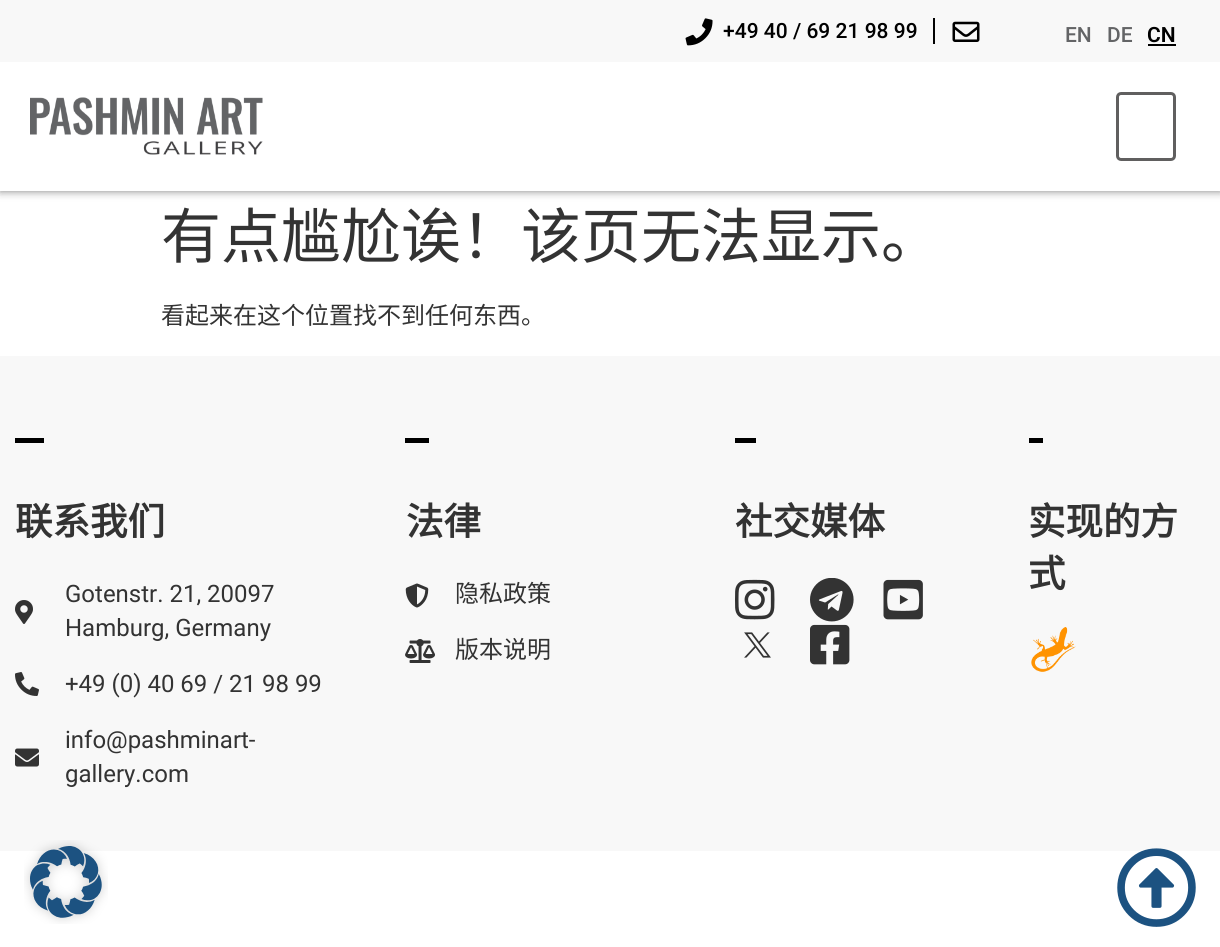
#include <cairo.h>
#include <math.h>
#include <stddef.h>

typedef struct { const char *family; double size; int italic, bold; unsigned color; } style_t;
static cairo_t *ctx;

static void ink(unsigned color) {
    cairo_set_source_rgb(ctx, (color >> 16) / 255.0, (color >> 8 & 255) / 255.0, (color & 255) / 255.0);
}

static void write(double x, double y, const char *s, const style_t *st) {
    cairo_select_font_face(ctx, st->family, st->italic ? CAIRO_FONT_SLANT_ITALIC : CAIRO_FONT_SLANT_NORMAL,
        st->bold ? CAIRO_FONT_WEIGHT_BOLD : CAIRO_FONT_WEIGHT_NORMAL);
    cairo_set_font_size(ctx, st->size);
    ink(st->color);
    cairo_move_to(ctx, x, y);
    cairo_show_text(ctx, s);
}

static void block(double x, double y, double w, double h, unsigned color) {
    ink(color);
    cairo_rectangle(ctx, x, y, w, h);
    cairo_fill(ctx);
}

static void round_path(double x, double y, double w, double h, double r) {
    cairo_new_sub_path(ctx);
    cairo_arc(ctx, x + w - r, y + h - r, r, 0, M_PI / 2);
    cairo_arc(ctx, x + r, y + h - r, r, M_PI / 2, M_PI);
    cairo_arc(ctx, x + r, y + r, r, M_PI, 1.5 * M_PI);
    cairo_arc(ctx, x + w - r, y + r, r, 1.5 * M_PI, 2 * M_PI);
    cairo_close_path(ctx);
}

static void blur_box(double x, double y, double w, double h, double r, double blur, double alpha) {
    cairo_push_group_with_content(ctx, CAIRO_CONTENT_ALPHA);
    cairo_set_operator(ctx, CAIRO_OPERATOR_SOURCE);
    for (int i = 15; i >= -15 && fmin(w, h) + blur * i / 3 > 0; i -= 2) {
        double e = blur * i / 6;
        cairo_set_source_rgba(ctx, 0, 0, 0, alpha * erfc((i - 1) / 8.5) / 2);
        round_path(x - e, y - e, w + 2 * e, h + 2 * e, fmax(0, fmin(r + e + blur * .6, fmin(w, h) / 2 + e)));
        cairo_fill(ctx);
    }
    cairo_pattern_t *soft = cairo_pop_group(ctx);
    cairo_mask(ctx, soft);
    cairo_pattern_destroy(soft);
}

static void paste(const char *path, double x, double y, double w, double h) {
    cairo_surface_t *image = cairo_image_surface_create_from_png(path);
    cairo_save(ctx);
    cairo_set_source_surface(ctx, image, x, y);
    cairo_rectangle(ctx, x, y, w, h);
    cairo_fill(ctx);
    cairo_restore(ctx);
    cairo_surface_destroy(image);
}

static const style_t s1 = {"Roboto Medium", 21, 0, 0, 0x000000};
static const style_t s2 = {"Roboto Medium", 21, 0, 0, 0x636466};
static const style_t s3 = {"Roboto SemiBold", 21, 0, 0, 0x000000};
static const style_t s4 = {"Noto Sans CJK SC", 60, 0, 0, 0x333333};
static const style_t s5 = {"Noto Sans CJK SC", 24, 0, 0, 0x333333};
static const style_t s6 = {"Noto Sans CJK SC", 37.5, 0, 1, 0x333333};
static const style_t s7 = {"Roboto", 24, 0, 0, 0x333333};

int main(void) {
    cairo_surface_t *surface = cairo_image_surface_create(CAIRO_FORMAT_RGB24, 1220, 947);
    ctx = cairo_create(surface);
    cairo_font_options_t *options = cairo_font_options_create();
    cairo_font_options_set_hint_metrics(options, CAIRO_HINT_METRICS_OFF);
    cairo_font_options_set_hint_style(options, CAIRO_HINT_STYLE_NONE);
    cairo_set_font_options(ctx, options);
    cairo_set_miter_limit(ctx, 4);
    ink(0xffffff);
    cairo_paint(ctx);
    ink(0x000000);
    blur_box(0, 0, 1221, 191, 0, 4.5, 0.5);
    block(0, 0, 1220, 62, 0xf8f8f8);
    paste("pic1.png", 685, 18, 28, 28);
    write(723, 38, "+49 40 / 69 21 98 99", &s1);
    block(933, 18, 2, 26, 0x020202);
    paste("pic2.png", 952, 21, 28, 21);
    write(1065, 42, "EN", &s2);
    write(1107, 42, "DE", &s2);
    write(1147, 42, "CN", &s3);
    block(1148, 44, 28, 2, 0x000000);
    block(0, 62, 1220, 129, 0xffffff);
    paste("pic3.png", 30, 97, 233, 58);
    round_path(1117.5, 93.5, 57, 66, 3.5);
    ink(0x605f5f);
    cairo_set_line_width(ctx, 3);
    cairo_stroke(ctx);
    block(0, 356, 1220, 495, 0xf8f8f8);
    paste("pic4.png", 1117, 848, 79, 79);
    write(161, 258, "有点尴尬诶！该页无法显示。", &s4);
    write(161, 324, "看起来在这个位置找不到任何东西。", &s5);
    block(15, 438, 29, 5, 0x000000);
    write(15, 535, "联系我们", &s6);
    paste("pic5.png", 15, 600, 18, 24);
    write(65, 602, "Gotenstr. 21, 20097", &s7);
    write(65, 636, "Hamburg, Germany", &s7);
    paste("pic6.png", 15, 672, 24, 24);
    write(65, 692, "+49 (0) 40 69 / 21 98 99", &s7);
    paste("pic7.png", 15, 748, 24, 19);
    write(65, 748, "info@pashminart-", &s7);
    write(65, 782, "gallery.com", &s7);
    block(405, 438, 24, 5, 0x000000);
    write(406, 535, "法律", &s6);
    paste("pic8.png", 405, 583, 24, 25);
    write(455, 602, "隐私政策", &s5);
    paste("pic9.png", 405, 639, 30, 24);
    write(455, 658, "版本说明", &s5);
    block(735, 438, 21, 5, 0x000000);
    write(735, 535, "社交媒体", &s6);
    paste("pic10.png", 735, 579, 40, 41);
    paste("pic11.png", 810, 578, 44, 44);
    paste("pic12.png", 883, 579, 40, 41);
    paste("pic13.png", 744, 632, 27, 26);
    paste("pic14.png", 810, 624, 40, 41);
    block(1029, 438, 14, 5, 0x000000);
    write(1028, 535, "实现的方", &s6);
    write(1028, 587, "式", &s6);
    paste("pic15.png", 1031, 627, 45, 45);
    paste("pic16.png", 24, 840, 84, 84);
    cairo_surface_write_to_png(surface, "screenshot.png");
    cairo_font_options_destroy(options);
    cairo_destroy(ctx);
    cairo_surface_destroy(surface);
    return 0;
}
